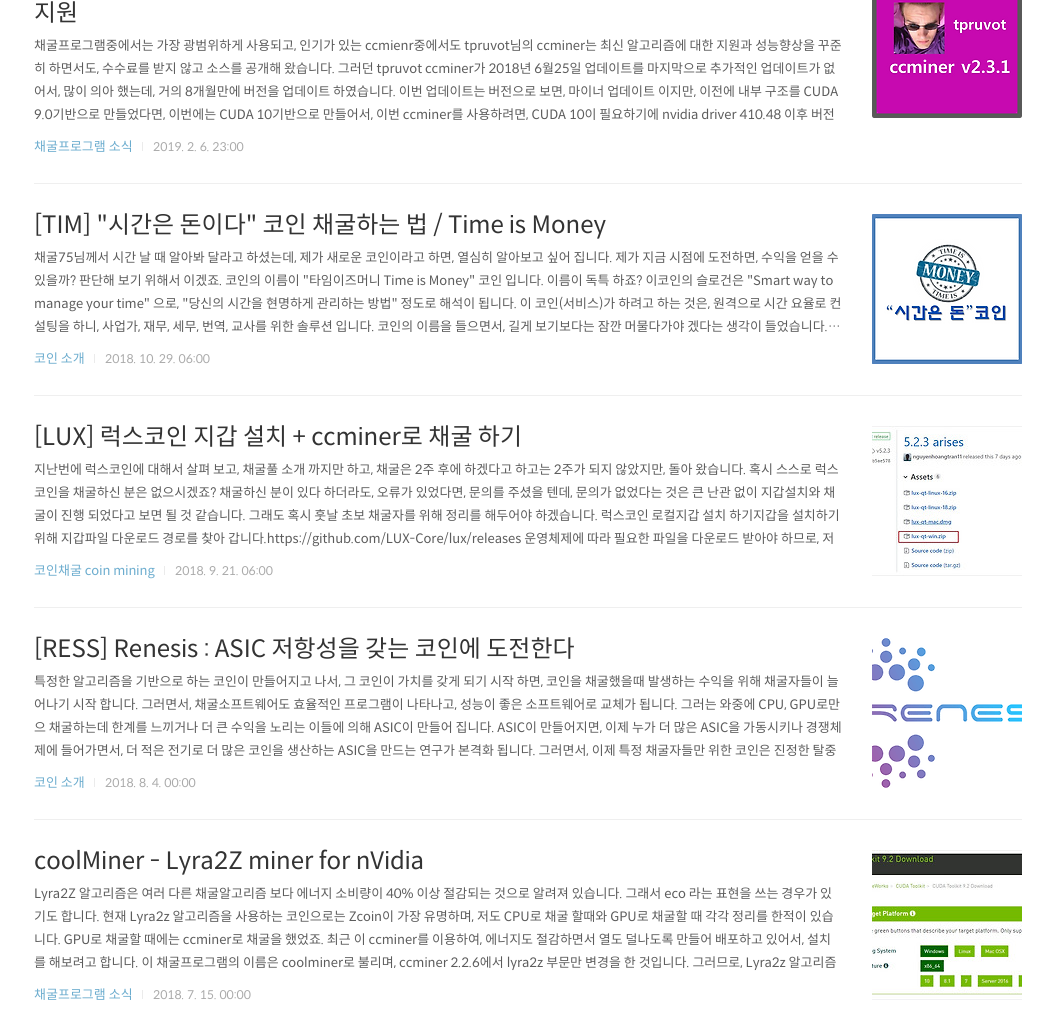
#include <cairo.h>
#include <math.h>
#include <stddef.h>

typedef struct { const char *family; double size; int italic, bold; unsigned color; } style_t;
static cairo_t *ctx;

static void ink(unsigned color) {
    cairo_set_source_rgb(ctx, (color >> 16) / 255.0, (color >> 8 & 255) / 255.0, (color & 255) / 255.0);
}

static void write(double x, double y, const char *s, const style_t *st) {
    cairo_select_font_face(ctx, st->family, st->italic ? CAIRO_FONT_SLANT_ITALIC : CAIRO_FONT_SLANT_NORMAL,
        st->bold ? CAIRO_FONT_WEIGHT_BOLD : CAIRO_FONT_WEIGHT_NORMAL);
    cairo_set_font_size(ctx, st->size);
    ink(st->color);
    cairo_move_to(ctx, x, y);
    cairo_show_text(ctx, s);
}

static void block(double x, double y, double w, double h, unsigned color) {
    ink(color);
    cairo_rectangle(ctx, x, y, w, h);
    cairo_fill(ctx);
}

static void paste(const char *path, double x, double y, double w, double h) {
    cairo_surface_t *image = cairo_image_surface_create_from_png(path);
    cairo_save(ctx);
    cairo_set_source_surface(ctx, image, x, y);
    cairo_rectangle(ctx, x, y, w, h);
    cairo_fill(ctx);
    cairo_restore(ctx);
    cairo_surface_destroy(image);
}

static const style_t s1 = {"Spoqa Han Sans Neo", 24, 0, 0, 0x333333};
static const style_t s2 = {"Spoqa Han Sans Neo", 13, 0, 0, 0x5c5c5c};
static const style_t s3 = {"Spoqa Han Sans Neo", 13, 0, 0, 0x6bacce};
static const style_t s4 = {"Spoqa Han Sans Neo", 12, 0, 0, 0xaaaaaa};

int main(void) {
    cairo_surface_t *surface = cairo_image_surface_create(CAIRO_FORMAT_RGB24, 1056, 1009);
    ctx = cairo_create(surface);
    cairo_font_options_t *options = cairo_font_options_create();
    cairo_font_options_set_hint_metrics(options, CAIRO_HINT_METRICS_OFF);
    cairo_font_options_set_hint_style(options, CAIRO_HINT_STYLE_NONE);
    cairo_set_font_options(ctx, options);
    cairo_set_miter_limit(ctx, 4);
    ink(0xffffff);
    cairo_paint(ctx);
    block(34, 183, 988, 1, 0xefefef);
    write(34, 21, "지원", &s1);
    write(34, 50, "채굴프로그램중에서는 가장 광범위하게 사용되고, 인기가 있는 ccmienr중에서도 tpruvot님의 ccminer는 최신 알고리즘에 대한 지원과 성능향상을 꾸준", &s2);
    write(34, 73, "히 하면서도, 수수료를 받지 않고 소스를 공개해 왔습니다. 그러던 tpruvot ccminer가 2018년 6월25일 업데이트를 마지막으로 추가적인 업데이트가 없", &s2);
    write(34, 96, "어서, 많이 의아 했는데, 거의 8개월만에 버전을 업데이트 하였습니다. 이번 업데이트는 버전으로 보면, 마이너 업데이트 이지만, 이전에 내부 구조를 CUDA", &s2);
    write(34, 119, "9.0기반으로 만들었다면, 이번에는 CUDA 10기반으로 만들어서, 이번 ccminer를 사용하려면, CUDA 10이 필요하기에 nvidia driver 410.48 이후 버전", &s2);
    paste("pic1.png", 872, 0, 150, 118);
    write(34, 151, "채굴프로그램 소식", &s3);
    block(142, 142, 1, 9, 0xebebeb);
    write(153, 151, "2019. 2. 6. 23:00", &s4);
    block(34, 395, 988, 1, 0xefefef);
    write(34, 233, "[TIM] \"시간은 돈이다\" 코인 채굴하는 법 / Time is Money", &s1);
    write(34, 262, "채굴75님께서 시간 날 때 알아봐 달라고 하셨는데, 제가 새로운 코인이라고 하면, 열심히 알아보고 싶어 집니다. 제가 지금 시점에 도전하면, 수익을 얻을 수", &s2);
    write(34, 285, "있을까? 판단해 보기 위해서 이겠죠. 코인의 이름이 \"타임이즈머니 Time is Money\" 코인 입니다. 이름이 독특 하죠? 이코인의 슬로건은 \"Smart way to", &s2);
    write(34, 308, "manage your time\" 으로, \"당신의 시간을 현명하게 관리하는 방법\" 정도로 해석이 됩니다. 이 코인(서비스)가 하려고 하는 것은, 원격으로 시간 요율로 컨", &s2);
    write(34, 331, "설팅을 하니, 사업가, 재무, 세무, 번역, 교사를 위한 솔루션 입니다. 코인의 이름을 들으면서, 길게 보기보다는 잠깐 머물다가야 겠다는 생각이 들었습니다.…", &s2);
    paste("pic2.png", 872, 214, 150, 150);
    write(34, 363, "코인 소개", &s3);
    block(94, 354, 1, 9, 0xebebeb);
    write(105, 363, "2018. 10. 29. 06:00", &s4);
    block(34, 607, 988, 1, 0xefefef);
    write(34, 445, "[LUX] 럭스코인 지갑 설치 + ccminer로 채굴 하기", &s1);
    write(34, 474, "지난번에 럭스코인에 대해서 살펴 보고, 채굴풀 소개 까지만 하고, 채굴은 2주 후에 하겠다고 하고는 2주가 되지 않았지만, 돌아 왔습니다. 혹시 스스로 럭스", &s2);
    write(34, 497, "코인을 채굴하신 분은 없으시겠죠? 채굴하신 분이 있다 하더라도, 오류가 있었다면, 문의를 주셨을 텐데, 문의가 없었다는 것은 큰 난관 없이 지갑설치와 채", &s2);
    write(34, 520, "굴이 진행 되었다고 보면 될 것 같습니다. 그래도 혹시 훗날 초보 채굴자를 위해 정리를 해두어야 하겠습니다. 럭스코인 로컬지갑 설치 하기지갑을 설치하기", &s2);
    write(34, 543, "위해 지갑파일 다운로드 경로를 찾아 갑니다.https://github.com/LUX-Core/lux/releases 운영체제에 따라 필요한 파일을 다운로드 받아야 하므로, 저", &s2);
    paste("pic3.png", 872, 426, 150, 150);
    write(34, 575, "코인채굴 coin mining", &s3);
    block(164, 566, 1, 9, 0xebebeb);
    write(175, 575, "2018. 9. 21. 06:00", &s4);
    block(34, 819, 988, 1, 0xefefef);
    write(34, 657, "[RESS] Renesis : ASIC 저항성을 갖는 코인에 도전한다", &s1);
    write(34, 686, "특정한 알고리즘을 기반으로 하는 코인이 만들어지고 나서, 그 코인이 가치를 갖게 되기 시작 하면, 코인을 채굴했을때 발생하는 수익을 위해 채굴자들이 늘", &s2);
    write(34, 709, "어나기 시작 합니다. 그러면서, 채굴소프트웨어도 효율적인 프로그램이 나타나고, 성능이 좋은 소프트웨어로 교체가 됩니다. 그러는 와중에 CPU, GPU로만", &s2);
    write(34, 732, "으 채굴하는데 한계를 느끼거나 더 큰 수익을 노리는 이들에 의해 ASIC이 만들어 집니다. ASIC이 만들어지면, 이제 누가 더 많은 ASIC을 가동시키나 경쟁체", &s2);
    write(34, 755, "제에 들어가면서, 더 적은 전기로 더 많은 코인을 생산하는 ASIC을 만드는 연구가 본격화 됩니다. 그러면서, 이제 특정 채굴자들만 위한 코인은 진정한 탈중", &s2);
    paste("pic4.png", 872, 638, 150, 150);
    write(34, 787, "코인 소개", &s3);
    block(94, 778, 1, 9, 0xebebeb);
    write(105, 787, "2018. 8. 4. 00:00", &s4);
    write(34, 869, "coolMiner - Lyra2Z miner for nVidia", &s1);
    write(34, 898, "Lyra2Z 알고리즘은 여러 다른 채굴알고리즘 보다 에너지 소비량이 40% 이상 절감되는 것으로 알려져 있습니다. 그래서 eco 라는 표현을 쓰는 경우가 있", &s2);
    write(34, 921, "기도 합니다. 현재 Lyra2z 알고리즘을 사용하는 코인으로는 Zcoin이 가장 유명하며, 저도 CPU로 채굴 할때와 GPU로 채굴할 때 각각 정리를 한적이 있습", &s2);
    write(34, 944, "니다. GPU로 채굴할 때에는 ccminer로 채굴을 했었죠. 최근 이 ccminer를 이용하여, 에너지도 절감하면서 열도 덜나도록 만들어 배포하고 있어서, 설치", &s2);
    write(34, 967, "를 해보려고 합니다. 이 채굴프로그램의 이름은 coolminer로 불리며, ccminer 2.2.6에서 lyra2z 부문만 변경을 한 것입니다. 그러므로, Lyra2z 알고리즘", &s2);
    paste("pic5.png", 872, 850, 150, 150);
    write(34, 999, "채굴프로그램 소식", &s3);
    block(142, 990, 1, 9, 0xebebeb);
    write(153, 999, "2018. 7. 15. 00:00", &s4);
    cairo_surface_write_to_png(surface, "screenshot.png");
    cairo_font_options_destroy(options);
    cairo_destroy(ctx);
    cairo_surface_destroy(surface);
    return 0;
}
